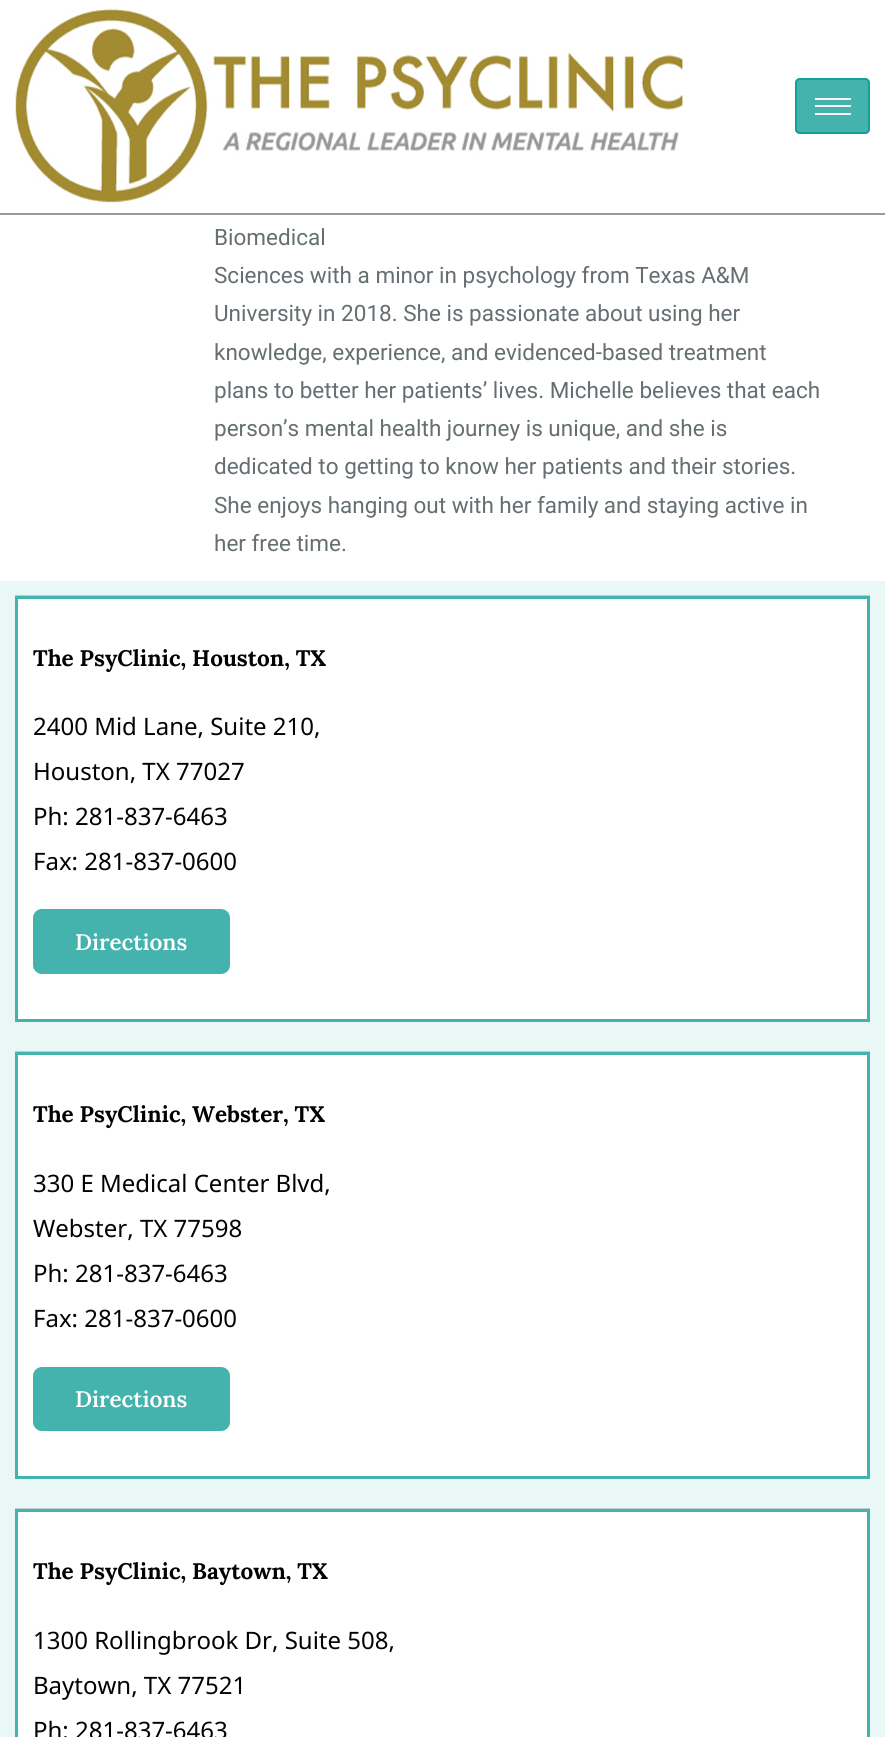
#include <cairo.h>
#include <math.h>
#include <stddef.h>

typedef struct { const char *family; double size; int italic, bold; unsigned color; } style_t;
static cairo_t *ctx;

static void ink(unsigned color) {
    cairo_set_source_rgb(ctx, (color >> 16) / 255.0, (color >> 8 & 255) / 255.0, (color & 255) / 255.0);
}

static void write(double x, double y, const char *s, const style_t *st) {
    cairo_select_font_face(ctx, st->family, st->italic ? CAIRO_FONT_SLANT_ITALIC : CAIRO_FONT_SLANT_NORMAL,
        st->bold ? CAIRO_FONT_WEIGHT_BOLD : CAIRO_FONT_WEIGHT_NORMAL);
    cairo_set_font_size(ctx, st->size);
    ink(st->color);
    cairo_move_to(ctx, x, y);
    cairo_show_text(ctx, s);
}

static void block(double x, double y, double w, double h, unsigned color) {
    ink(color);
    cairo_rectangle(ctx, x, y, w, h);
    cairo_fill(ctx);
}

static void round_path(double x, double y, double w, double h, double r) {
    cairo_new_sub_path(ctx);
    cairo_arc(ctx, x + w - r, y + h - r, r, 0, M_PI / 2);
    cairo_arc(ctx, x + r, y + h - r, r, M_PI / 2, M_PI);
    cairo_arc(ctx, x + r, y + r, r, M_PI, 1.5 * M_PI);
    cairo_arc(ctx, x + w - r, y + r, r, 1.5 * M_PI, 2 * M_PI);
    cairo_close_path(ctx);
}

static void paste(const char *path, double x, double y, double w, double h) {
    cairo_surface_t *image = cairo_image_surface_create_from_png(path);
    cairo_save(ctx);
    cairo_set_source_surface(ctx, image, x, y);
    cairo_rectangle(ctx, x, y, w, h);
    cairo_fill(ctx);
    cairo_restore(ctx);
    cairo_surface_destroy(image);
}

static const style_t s1 = {"Roboto", 22.5, 0, 0, 0x656f72};
static const style_t s2 = {"Lora", 22.5, 0, 1, 0x020202};
static const style_t s3 = {"Noto Sans Balinese", 24, 0, 0, 0x020202};
static const style_t s4 = {"Lora SemiBold", 22.5, 0, 0, 0xffffff};

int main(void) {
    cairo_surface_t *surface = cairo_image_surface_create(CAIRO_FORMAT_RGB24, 885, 1737);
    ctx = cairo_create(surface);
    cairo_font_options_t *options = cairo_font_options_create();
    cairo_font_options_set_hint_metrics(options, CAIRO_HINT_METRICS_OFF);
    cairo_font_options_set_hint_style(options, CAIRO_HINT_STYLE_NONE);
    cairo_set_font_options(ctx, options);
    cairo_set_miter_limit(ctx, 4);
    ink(0xffffff);
    cairo_paint(ctx);
    block(0, 213, 885, 2, 0x999999);
    paste("pic1.png", 15, 8, 668, 195);
    ink(0x44b3ad);
    round_path(795, 78, 75, 56, 5);
    cairo_fill(ctx);
    round_path(796, 79, 73, 54, 4);
    cairo_set_source_rgba(ctx, 0.02, 0.604, 0.573, 0.75);
    cairo_stroke(ctx);
    block(815, 98, 36, 2, 0xfdf3ff);
    block(815, 105, 36, 2, 0xfdf3ff);
    block(815, 113, 36, 2, 0xfdf3ff);
    write(214, 245, "Biomedical", &s1);
    write(214, 283, "Sciences with a minor in psychology from Texas A&M", &s1);
    write(214, 321, "University in 2018. She is passionate about using her", &s1);
    write(214, 360, "knowledge, experience, and evidenced-based treatment", &s1);
    write(214, 398, "plans to better her patients’ lives. Michelle believes that each", &s1);
    write(214, 436, "person’s mental health journey is unique, and she is", &s1);
    write(214, 474, "dedicated to getting to know her patients and their stories.", &s1);
    write(214, 513, "She enjoys hanging out with her family and staying active in", &s1);
    write(214, 551, "her free time.", &s1);
    block(0, 581, 885, 1156, 0xe9f7f6);
    block(15, 595, 855, 1, 0xc2cbd2);
    ink(0xffffff);
    cairo_rectangle(ctx, 16.5, 597.5, 852, 423);
    cairo_fill_preserve(ctx);
    ink(0x44b3ad);
    cairo_set_line_width(ctx, 3);
    cairo_stroke(ctx);
    write(33, 666, "The PsyClinic, Houston, TX", &s2);
    write(33, 735, "2400 Mid Lane, Suite 210,", &s3);
    write(33, 780, "Houston, TX 77027", &s3);
    write(33, 825, "Ph: 281-837-6463", &s3);
    write(33, 870, "Fax: 281-837-0600", &s3);
    ink(0x44b3ad);
    round_path(33, 909, 197, 65, 9);
    cairo_fill(ctx);
    write(75, 950, "Directions", &s4);
    block(15, 1051, 855, 1, 0xc2cbd2);
    ink(0xffffff);
    cairo_rectangle(ctx, 16.5, 1053.5, 852, 424);
    cairo_fill_preserve(ctx);
    ink(0x44b3ad);
    cairo_stroke(ctx);
    write(33, 1122, "The PsyClinic, Webster, TX", &s2);
    write(33, 1192, "330 E Medical Center Blvd,", &s3);
    write(33, 1237, "Webster, TX 77598", &s3);
    write(33, 1282, "Ph: 281-837-6463", &s3);
    write(33, 1327, "Fax: 281-837-0600", &s3);
    ink(0x44b3ad);
    round_path(33, 1367, 197, 64, 9);
    cairo_fill(ctx);
    write(75, 1407, "Directions", &s4);
    block(15, 1508, 855, 1, 0xc2cbd2);
    ink(0xffffff);
    cairo_rectangle(ctx, 16.5, 1510.5, 852, 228);
    cairo_fill_preserve(ctx);
    ink(0x44b3ad);
    cairo_stroke(ctx);
    write(33, 1579, "The PsyClinic, Baytown, TX", &s2);
    write(33, 1649, "1300 Rollingbrook Dr, Suite 508,", &s3);
    write(33, 1694, "Baytown, TX 77521", &s3);
    write(33, 1739, "Ph: 281-837-6463", &s3);
    cairo_surface_write_to_png(surface, "screenshot.png");
    cairo_font_options_destroy(options);
    cairo_destroy(ctx);
    cairo_surface_destroy(surface);
    return 0;
}
